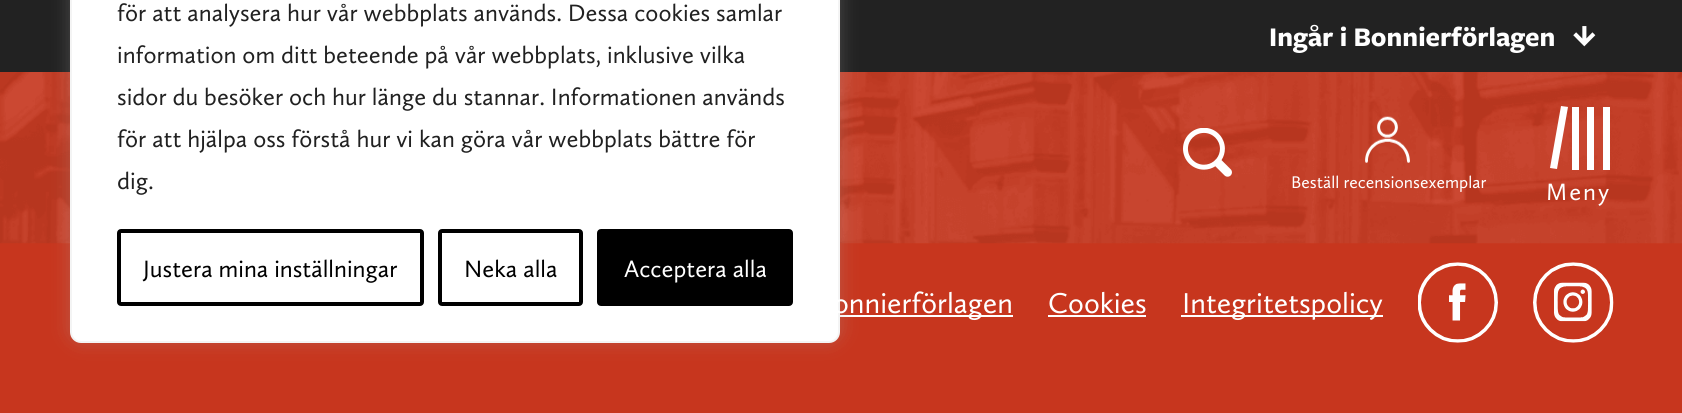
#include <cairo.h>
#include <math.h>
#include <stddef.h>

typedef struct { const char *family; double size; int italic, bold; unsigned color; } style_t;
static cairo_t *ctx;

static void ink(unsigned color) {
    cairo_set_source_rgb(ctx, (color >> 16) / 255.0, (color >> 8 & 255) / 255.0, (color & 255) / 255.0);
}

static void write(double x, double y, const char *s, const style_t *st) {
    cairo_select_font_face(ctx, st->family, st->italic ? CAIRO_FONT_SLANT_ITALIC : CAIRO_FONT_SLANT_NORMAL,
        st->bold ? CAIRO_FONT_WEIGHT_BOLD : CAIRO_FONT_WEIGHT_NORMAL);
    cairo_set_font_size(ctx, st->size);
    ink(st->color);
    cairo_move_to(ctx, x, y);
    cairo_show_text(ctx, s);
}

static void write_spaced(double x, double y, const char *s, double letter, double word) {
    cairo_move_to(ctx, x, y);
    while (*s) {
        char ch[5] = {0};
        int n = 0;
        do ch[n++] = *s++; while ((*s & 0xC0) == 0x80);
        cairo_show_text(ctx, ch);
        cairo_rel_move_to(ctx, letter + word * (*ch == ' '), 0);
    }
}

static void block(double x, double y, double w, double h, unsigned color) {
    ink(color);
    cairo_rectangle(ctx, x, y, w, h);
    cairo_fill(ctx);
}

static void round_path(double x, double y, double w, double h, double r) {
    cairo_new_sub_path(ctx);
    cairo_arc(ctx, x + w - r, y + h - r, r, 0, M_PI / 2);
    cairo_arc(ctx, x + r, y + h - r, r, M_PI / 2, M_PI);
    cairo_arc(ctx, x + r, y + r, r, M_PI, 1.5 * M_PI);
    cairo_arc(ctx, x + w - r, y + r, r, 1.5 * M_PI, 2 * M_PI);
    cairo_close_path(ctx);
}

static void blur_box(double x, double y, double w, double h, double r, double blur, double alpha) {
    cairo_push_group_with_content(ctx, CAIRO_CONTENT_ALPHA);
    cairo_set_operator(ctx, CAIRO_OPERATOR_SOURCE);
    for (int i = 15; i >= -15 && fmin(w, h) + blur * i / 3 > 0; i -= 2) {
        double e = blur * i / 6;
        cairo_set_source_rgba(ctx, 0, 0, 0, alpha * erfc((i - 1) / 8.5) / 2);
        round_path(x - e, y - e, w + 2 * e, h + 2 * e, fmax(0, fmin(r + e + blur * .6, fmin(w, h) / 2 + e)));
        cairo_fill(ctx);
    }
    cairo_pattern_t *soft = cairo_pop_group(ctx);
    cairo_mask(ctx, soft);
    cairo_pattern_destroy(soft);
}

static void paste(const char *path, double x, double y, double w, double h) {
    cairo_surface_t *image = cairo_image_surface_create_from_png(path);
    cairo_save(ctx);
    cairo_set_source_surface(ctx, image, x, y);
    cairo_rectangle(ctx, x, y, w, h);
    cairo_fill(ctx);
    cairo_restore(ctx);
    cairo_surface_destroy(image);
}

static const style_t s1 = {"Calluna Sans", 24.5, 0, 0, 0x212121};
static const style_t s2 = {"Calluna Sans", 24.5, 0, 0, 0x000000};
static const style_t s3 = {"Calluna Sans", 24.5, 0, 0, 0xffffff};
static const style_t s4 = {"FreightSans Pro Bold", 28, 0, 1, 0xffffff};
static const style_t s5 = {"Calluna Sans", 17.5, 0, 0, 0xffffff};
static const style_t s6 = {"Calluna Sans", 29.75, 0, 0, 0xffffff};

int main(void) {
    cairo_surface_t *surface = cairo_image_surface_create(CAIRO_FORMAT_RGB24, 1682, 413);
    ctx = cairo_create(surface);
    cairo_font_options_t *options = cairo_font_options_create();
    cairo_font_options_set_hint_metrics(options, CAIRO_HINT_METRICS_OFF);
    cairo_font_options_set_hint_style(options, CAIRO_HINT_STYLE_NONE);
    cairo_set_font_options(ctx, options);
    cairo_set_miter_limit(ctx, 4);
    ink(0xc7361e);
    cairo_paint(ctx);
    block(0, 0, 1682, 72, 0x222222);
    paste("pic2.png", 0, 72, 1682, 172);
    block(840, 315, 173, 2, 0xffffff);
    ink(0xacabab);
    blur_box(70, -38, 770, 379, 11, 9, 0.3);
    ink(0xffffff);
    round_path(71, -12, 768, 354, 10);
    cairo_fill_preserve(ctx);
    ink(0xf4f4f4);
    cairo_stroke(ctx);
    write(117, 21, "för att analysera hur vår webbplats används. Dessa cookies samlar", &s1);
    write(117, 63, "information om ditt beteende på vår webbplats, inklusive vilka", &s1);
    write(117, 105, "sidor du besöker och hur länge du stannar. Informationen används", &s1);
    write(117, 147, "för att hjälpa oss förstå hur vi kan göra vår webbplats bättre för", &s1);
    write(117, 189, "dig.", &s1);
    round_path(119, 231, 303, 73, 2);
    ink(0x000000);
    cairo_set_line_width(ctx, 4);
    cairo_stroke(ctx);
    write(143, 277, "Justera mina inställningar", &s2);
    round_path(440, 231, 141, 73, 2);
    cairo_stroke(ctx);
    write(464, 277, "Neka alla", &s2);
    round_path(599, 231, 192, 73, 2);
    cairo_fill_preserve(ctx);
    cairo_stroke(ctx);
    write(624, 277, "Acceptera alla", &s3);
    write(1269, 46, "Ingår i Bonnierförlagen", &s4);
    paste("pic1.png", 1573, 26, 23, 21);
    paste("pic3.png", 1183, 128, 49, 49);
    paste("pic4.png", 1365, 116, 45, 47);
    write(1291, 188, "Beställ recensionsexemplar", &s5);
    cairo_new_path(ctx);
    cairo_move_to(ctx, 1561, 106);
    cairo_line_to(ctx, 1568, 107);
    cairo_line_to(ctx, 1557, 169);
    cairo_line_to(ctx, 1550, 168);
    cairo_close_path(ctx);
    cairo_fill(ctx);
    block(1572, 107, 7, 63, 0xffffff);
    block(1587, 107, 7, 63, 0xffffff);
    block(1603, 107, 7, 63, 0xffffff);
    cairo_set_font_size(ctx, 24.5);
    write_spaced(1546, 200, "Meny", 2, 0);
    write(833, 313, "onnierförlagen", &s6);
    write(1048, 313, "Cookies", &s6);
    block(1048, 315, 98, 2, 0xffffff);
    block(1181, 315, 202, 2, 0xffffff);
    write(1182, 313, "Integritetspolicy", &s6);
    paste("pic5.png", 1418, 262, 80, 81);
    paste("pic6.png", 1533, 262, 81, 81);
    cairo_surface_write_to_png(surface, "screenshot.png");
    cairo_font_options_destroy(options);
    cairo_destroy(ctx);
    cairo_surface_destroy(surface);
    return 0;
}
